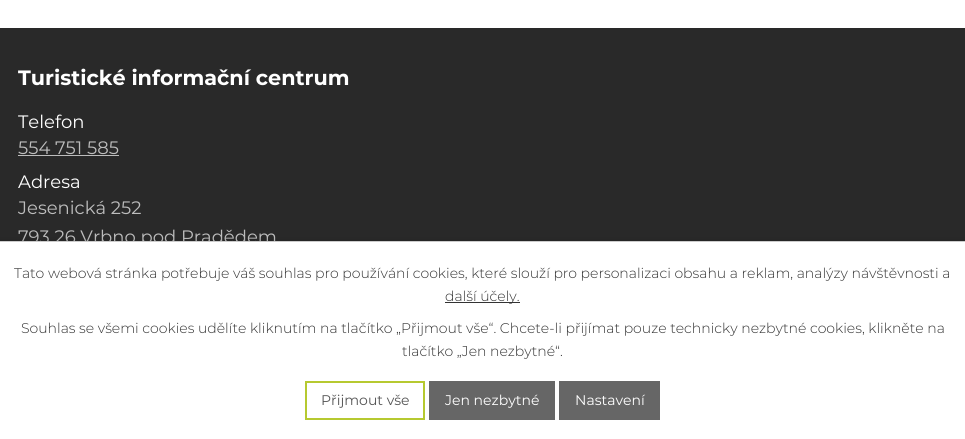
#include <cairo.h>
#include <math.h>
#include <stddef.h>

typedef struct { const char *family; double size; int italic, bold; unsigned color; } style_t;
static cairo_t *ctx;

static void ink(unsigned color) {
    cairo_set_source_rgb(ctx, (color >> 16) / 255.0, (color >> 8 & 255) / 255.0, (color & 255) / 255.0);
}

static void write(double x, double y, const char *s, const style_t *st) {
    cairo_select_font_face(ctx, st->family, st->italic ? CAIRO_FONT_SLANT_ITALIC : CAIRO_FONT_SLANT_NORMAL,
        st->bold ? CAIRO_FONT_WEIGHT_BOLD : CAIRO_FONT_WEIGHT_NORMAL);
    cairo_set_font_size(ctx, st->size);
    ink(st->color);
    cairo_move_to(ctx, x, y);
    cairo_show_text(ctx, s);
}

static void block(double x, double y, double w, double h, unsigned color) {
    ink(color);
    cairo_rectangle(ctx, x, y, w, h);
    cairo_fill(ctx);
}

static void round_path(double x, double y, double w, double h, double r) {
    cairo_new_sub_path(ctx);
    cairo_arc(ctx, x + w - r, y + h - r, r, 0, M_PI / 2);
    cairo_arc(ctx, x + r, y + h - r, r, M_PI / 2, M_PI);
    cairo_arc(ctx, x + r, y + r, r, M_PI, 1.5 * M_PI);
    cairo_arc(ctx, x + w - r, y + r, r, 1.5 * M_PI, 2 * M_PI);
    cairo_close_path(ctx);
}

static void blur_box(double x, double y, double w, double h, double r, double blur, double alpha) {
    cairo_push_group_with_content(ctx, CAIRO_CONTENT_ALPHA);
    cairo_set_operator(ctx, CAIRO_OPERATOR_SOURCE);
    for (int i = 15; i >= -15 && fmin(w, h) + blur * i / 3 > 0; i -= 2) {
        double e = blur * i / 6;
        cairo_set_source_rgba(ctx, 0, 0, 0, alpha * erfc((i - 1) / 8.5) / 2);
        round_path(x - e, y - e, w + 2 * e, h + 2 * e, fmax(0, fmin(r + e + blur * .6, fmin(w, h) / 2 + e)));
        cairo_fill(ctx);
    }
    cairo_pattern_t *soft = cairo_pop_group(ctx);
    cairo_mask(ctx, soft);
    cairo_pattern_destroy(soft);
}

static const style_t s1 = {"Montserrat", 20.75, 0, 1, 0xffffff};
static const style_t s2 = {"Montserrat", 18, 0, 0, 0xffffff};
static const style_t s3 = {"Montserrat", 18, 0, 0, 0xbdbdbd};
static const style_t s4 = {"Montserrat Light", 14, 0, 0, 0x333333};
static const style_t s5 = {"Montserrat", 14, 0, 0, 0x555555};
static const style_t s6 = {"Montserrat", 14, 0, 0, 0xffffff};

int main(void) {
    cairo_surface_t *surface = cairo_image_surface_create(CAIRO_FORMAT_RGB24, 965, 439);
    ctx = cairo_create(surface);
    cairo_font_options_t *options = cairo_font_options_create();
    cairo_font_options_set_hint_metrics(options, CAIRO_HINT_METRICS_OFF);
    cairo_font_options_set_hint_style(options, CAIRO_HINT_STYLE_NONE);
    cairo_set_font_options(ctx, options);
    cairo_set_miter_limit(ctx, 4);
    ink(0xffffff);
    cairo_paint(ctx);
    block(0, 28, 965, 213, 0x292929);
    write(18, 85, "Turistické informační centrum", &s1);
    write(18, 128, "Telefon", &s2);
    write(18, 154, "554 751 585", &s3);
    block(18, 155, 101, 1, 0xbdbdbd);
    write(18, 188, "Adresa", &s2);
    write(18, 214, "Jesenická 252", &s3);
    write(18, 243, "793 26 Vrbno pod Pradědem", &s3);
    ink(0x000000);
    blur_box(0, 241, 965, 198, 0, 2.5, 0.2);
    block(0, 242, 965, 197, 0xffffff);
    block(0, 241, 965, 1, 0xcccccc);
    write(14, 278, "Tato webová stránka potřebuje váš souhlas pro používání cookies, které slouží pro personalizaci obsahu a reklam, analýzy návštěvnosti a", &s4);
    block(445, 302, 75, 1, 0x333333);
    write(445, 301, "další účely.", &s4);
    write(21, 333, "Souhlas se všemi cookies udělíte kliknutím na tlačítko „Přijmout vše“. Chcete-li přijímat pouze technicky nezbytné cookies, klikněte na", &s4);
    write(402, 356, "tlačítko „Jen nezbytné“.", &s4);
    cairo_rectangle(ctx, 306, 382, 118, 37);
    ink(0xb6c930);
    cairo_stroke(ctx);
    write(321, 405, "Přijmout vše", &s5);
    block(429, 381, 126, 39, 0x666666);
    write(445, 405, "Jen nezbytné", &s6);
    block(559, 381, 101, 39, 0x666666);
    write(575, 405, "Nastavení", &s6);
    cairo_surface_write_to_png(surface, "screenshot.png");
    cairo_font_options_destroy(options);
    cairo_destroy(ctx);
    cairo_surface_destroy(surface);
    return 0;
}
